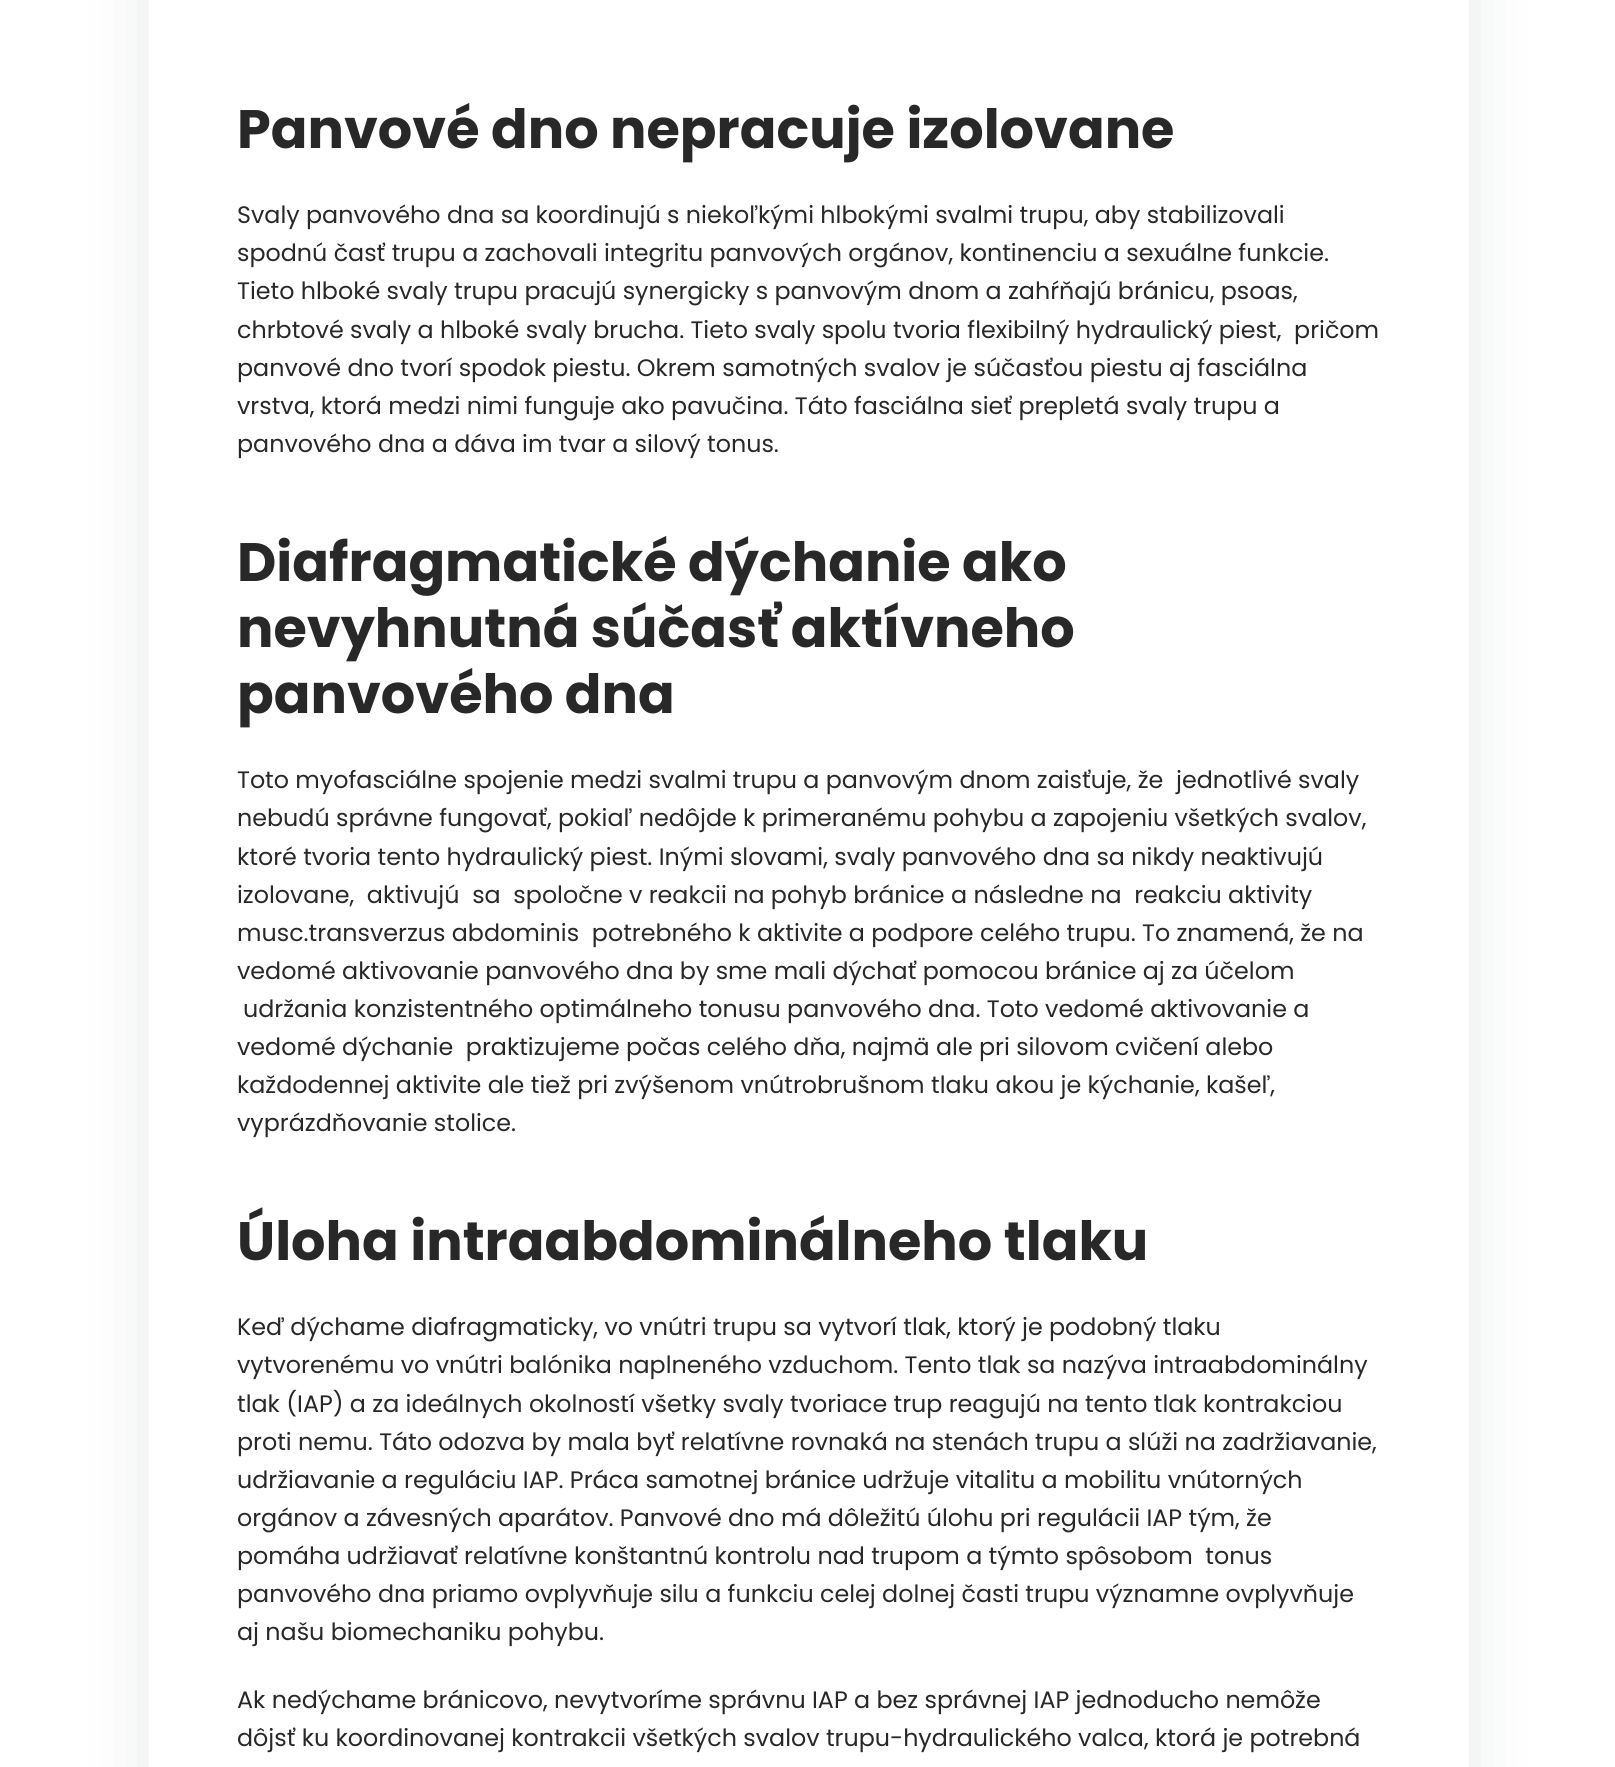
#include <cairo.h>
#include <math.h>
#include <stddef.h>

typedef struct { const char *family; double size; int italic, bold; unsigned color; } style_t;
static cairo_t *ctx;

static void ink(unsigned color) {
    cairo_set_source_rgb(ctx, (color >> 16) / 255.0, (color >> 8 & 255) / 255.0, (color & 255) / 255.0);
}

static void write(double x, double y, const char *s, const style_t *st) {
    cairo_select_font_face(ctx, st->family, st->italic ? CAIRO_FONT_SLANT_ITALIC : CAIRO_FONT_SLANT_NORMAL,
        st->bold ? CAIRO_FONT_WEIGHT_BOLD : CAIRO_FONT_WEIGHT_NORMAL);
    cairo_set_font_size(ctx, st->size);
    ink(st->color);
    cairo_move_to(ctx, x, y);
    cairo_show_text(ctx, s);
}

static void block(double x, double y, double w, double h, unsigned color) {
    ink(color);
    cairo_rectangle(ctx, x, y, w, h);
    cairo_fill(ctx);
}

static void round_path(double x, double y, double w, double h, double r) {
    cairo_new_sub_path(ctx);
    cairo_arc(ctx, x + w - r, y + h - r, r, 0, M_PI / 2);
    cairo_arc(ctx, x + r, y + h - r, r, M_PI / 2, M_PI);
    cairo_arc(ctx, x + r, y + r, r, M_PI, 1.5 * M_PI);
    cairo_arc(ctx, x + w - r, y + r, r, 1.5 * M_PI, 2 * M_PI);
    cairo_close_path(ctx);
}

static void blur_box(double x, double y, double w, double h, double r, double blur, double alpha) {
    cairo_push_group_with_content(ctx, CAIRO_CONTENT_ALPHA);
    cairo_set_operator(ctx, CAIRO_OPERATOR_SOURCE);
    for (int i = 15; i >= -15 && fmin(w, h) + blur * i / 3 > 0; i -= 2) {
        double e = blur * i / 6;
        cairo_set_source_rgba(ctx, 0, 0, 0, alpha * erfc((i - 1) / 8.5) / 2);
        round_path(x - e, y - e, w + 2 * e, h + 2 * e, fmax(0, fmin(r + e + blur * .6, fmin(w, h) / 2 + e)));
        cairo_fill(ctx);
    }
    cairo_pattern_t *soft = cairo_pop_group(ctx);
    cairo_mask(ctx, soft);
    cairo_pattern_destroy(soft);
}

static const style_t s1 = {"Poppins", 54.1, 0, 1, 0x282828};
static const style_t s2 = {"Poppins", 23.8, 0, 0, 0x282828};

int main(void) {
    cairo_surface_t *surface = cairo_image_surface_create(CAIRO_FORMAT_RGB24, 1615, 1767);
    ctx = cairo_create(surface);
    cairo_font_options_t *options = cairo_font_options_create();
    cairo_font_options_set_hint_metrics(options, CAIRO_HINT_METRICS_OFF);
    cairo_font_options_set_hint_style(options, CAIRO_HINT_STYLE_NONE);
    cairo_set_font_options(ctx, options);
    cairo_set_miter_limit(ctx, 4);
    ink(0xffffff);
    cairo_paint(ctx);
    ink(0x101828);
    blur_box(167, -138, 1284, 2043, 30, 36, 0.18);
    block(149, 0, 1320, 1767, 0xffffff);
    write(237, 148, "Panvové dno nepracuje izolovane", &s1);
    write(237, 223, "Svaly panvového dna sa koordinujú s niekoľkými hlbokými svalmi trupu, aby stabilizovali", &s2);
    write(237, 261, "spodnú časť trupu a zachovali integritu panvových orgánov, kontinenciu a sexuálne funkcie.", &s2);
    write(237, 299, "Tieto hlboké svaly trupu pracujú synergicky s panvovým dnom a zahŕňajú bránicu, psoas,", &s2);
    write(237, 338, "chrbtové svaly a hlboké svaly brucha. Tieto svaly spolu tvoria flexibilný hydraulický piest,  pričom", &s2);
    write(237, 376, "panvové dno tvorí spodok piestu. Okrem samotných svalov je súčasťou piestu aj fasciálna", &s2);
    write(237, 414, "vrstva, ktorá medzi nimi funguje ako pavučina. Táto fasciálna sieť prepletá svaly trupu a", &s2);
    write(237, 452, "panvového dna a dáva im tvar a silový tonus.", &s2);
    write(237, 581, "Diafragmatické dýchanie ako", &s1);
    write(237, 647, "nevyhnutná súčasť aktívneho", &s1);
    write(237, 713, "panvového dna", &s1);
    write(237, 788, "Toto myofasciálne spojenie medzi svalmi trupu a panvovým dnom zaisťuje, že  jednotlivé svaly", &s2);
    write(237, 826, "nebudú správne fungovať, pokiaľ nedôjde k primeranému pohybu a zapojeniu všetkých svalov,", &s2);
    write(237, 865, "ktoré tvoria tento hydraulický piest. Inými slovami, svaly panvového dna sa nikdy neaktivujú", &s2);
    write(237, 903, "izolovane,  aktivujú  sa  spoločne v reakcii na pohyb bránice a následne na  reakciu aktivity", &s2);
    write(237, 941, "musc.transverzus abdominis  potrebného k aktivite a podpore celého trupu. To znamená, že na", &s2);
    write(237, 979, "vedomé aktivovanie panvového dna by sme mali dýchať pomocou bránice aj za účelom", &s2);
    write(243, 1017, "udržania konzistentného optimálneho tonusu panvového dna. Toto vedomé aktivovanie a", &s2);
    write(237, 1055, "vedomé dýchanie  praktizujeme počas celého dňa, najmä ale pri silovom cvičení alebo", &s2);
    write(237, 1093, "každodennej aktivite ale tiež pri zvýšenom vnútrobrušnom tlaku akou je kýchanie, kašeľ,", &s2);
    write(237, 1131, "vyprázdňovanie stolice.", &s2);
    write(237, 1260, "Úloha intraabdominálneho tlaku", &s1);
    write(237, 1335, "Keď dýchame diafragmaticky, vo vnútri trupu sa vytvorí tlak, ktorý je podobný tlaku", &s2);
    write(237, 1373, "vytvorenému vo vnútri balónika naplneného vzduchom. Tento tlak sa nazýva intraabdominálny", &s2);
    write(237, 1412, "tlak (IAP) a za ideálnych okolností všetky svaly tvoriace trup reagujú na tento tlak kontrakciou", &s2);
    write(237, 1450, "proti nemu. Táto odozva by mala byť relatívne rovnaká na stenách trupu a slúži na zadržiavanie,", &s2);
    write(237, 1488, "udržiavanie a reguláciu IAP. Práca samotnej bránice udržuje vitalitu a mobilitu vnútorných", &s2);
    write(237, 1526, "orgánov a závesných aparátov. Panvové dno má dôležitú úlohu pri regulácii IAP tým, že", &s2);
    write(237, 1564, "pomáha udržiavať relatívne konštantnú kontrolu nad trupom a týmto spôsobom  tonus", &s2);
    write(237, 1602, "panvového dna priamo ovplyvňuje silu a funkciu celej dolnej časti trupu významne ovplyvňuje", &s2);
    write(237, 1640, "aj našu biomechaniku pohybu.", &s2);
    write(237, 1708, "Ak nedýchame bránicovo, nevytvoríme správnu IAP a bez správnej IAP jednoducho nemôže", &s2);
    write(237, 1746, "dôjsť ku koordinovanej kontrakcii všetkých svalov trupu-hydraulického valca, ktorá je potrebná", &s2);
    cairo_surface_write_to_png(surface, "screenshot.png");
    cairo_font_options_destroy(options);
    cairo_destroy(ctx);
    cairo_surface_destroy(surface);
    return 0;
}
